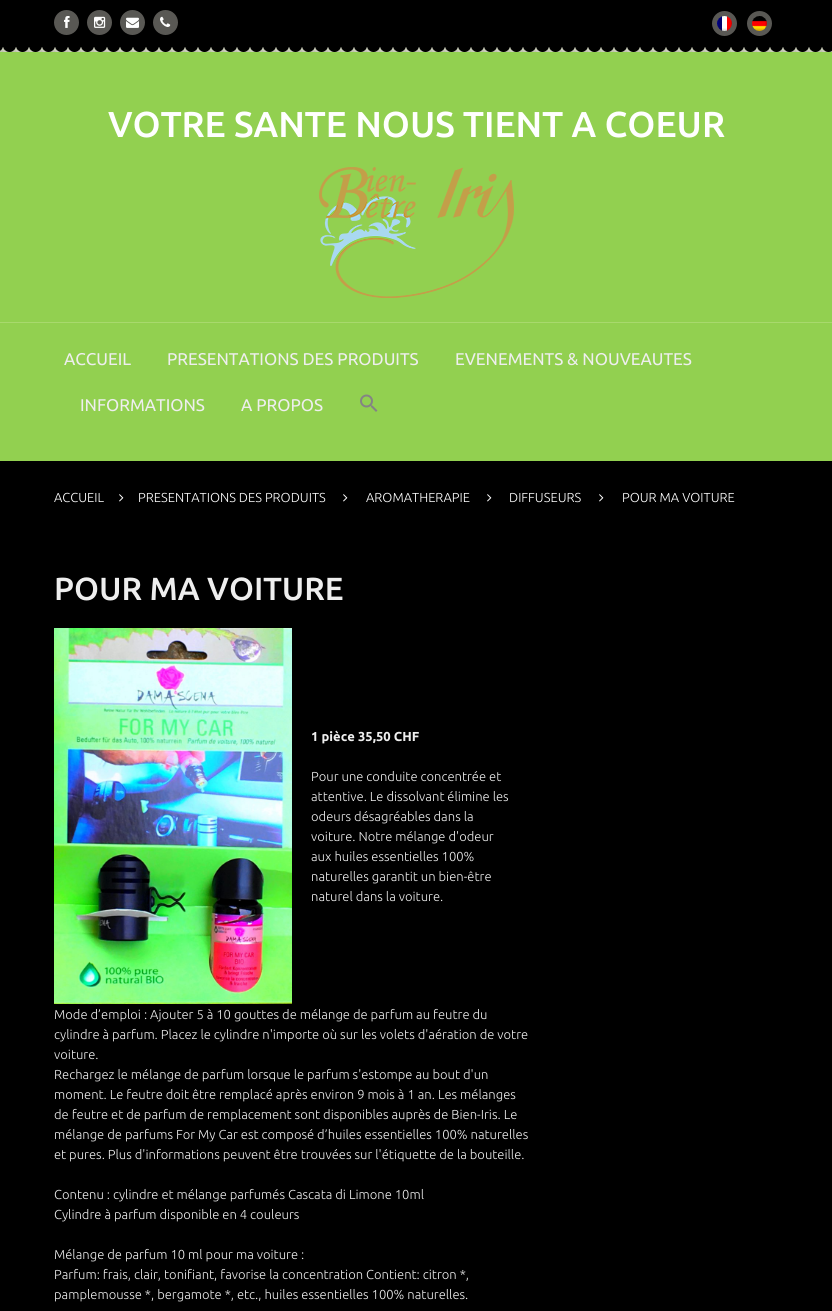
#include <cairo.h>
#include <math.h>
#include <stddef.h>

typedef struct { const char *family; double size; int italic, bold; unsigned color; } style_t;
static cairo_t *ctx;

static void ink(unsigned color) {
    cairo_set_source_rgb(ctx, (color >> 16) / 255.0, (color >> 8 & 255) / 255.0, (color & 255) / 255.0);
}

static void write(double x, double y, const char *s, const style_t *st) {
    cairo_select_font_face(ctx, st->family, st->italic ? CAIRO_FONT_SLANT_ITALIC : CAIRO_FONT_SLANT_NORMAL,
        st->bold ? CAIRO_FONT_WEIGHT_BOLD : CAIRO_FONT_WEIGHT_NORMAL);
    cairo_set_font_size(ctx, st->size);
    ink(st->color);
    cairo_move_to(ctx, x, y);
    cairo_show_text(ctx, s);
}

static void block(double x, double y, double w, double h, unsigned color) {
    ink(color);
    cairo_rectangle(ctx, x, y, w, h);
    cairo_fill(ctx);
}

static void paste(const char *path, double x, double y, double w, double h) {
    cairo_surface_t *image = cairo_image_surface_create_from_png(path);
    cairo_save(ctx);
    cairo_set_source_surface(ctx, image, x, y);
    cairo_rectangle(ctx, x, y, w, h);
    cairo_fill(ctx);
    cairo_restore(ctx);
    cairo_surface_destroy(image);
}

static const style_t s1 = {"Ubuntu Medium", 36, 0, 0, 0xffffff};
static const style_t s2 = {"Ubuntu", 17, 0, 0, 0xeeeeee};
static const style_t s3 = {"Ubuntu Light", 13, 0, 0, 0xffffff};
static const style_t s4 = {"Ubuntu Medium", 32, 0, 0, 0xeeeeee};
static const style_t s5 = {"Ubuntu", 13, 0, 1, 0xeeeeee};
static const style_t s6 = {"Ubuntu Light", 13, 0, 0, 0xeeeeee};

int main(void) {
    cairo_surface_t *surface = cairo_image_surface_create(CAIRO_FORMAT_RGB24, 832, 1311);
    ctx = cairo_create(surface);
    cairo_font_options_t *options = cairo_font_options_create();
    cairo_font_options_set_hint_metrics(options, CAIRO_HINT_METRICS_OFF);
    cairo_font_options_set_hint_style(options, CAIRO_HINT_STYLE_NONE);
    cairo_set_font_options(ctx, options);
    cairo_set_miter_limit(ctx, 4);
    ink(0x000000);
    cairo_paint(ctx);
    ink(0x595854);
    cairo_arc(ctx, 66.5, 22.5, 12.5, 0, 2 * M_PI);
    cairo_fill(ctx);
    paste("pic1.png", 64, 16, 6, 12);
    cairo_arc(ctx, 99.5, 22.5, 12.5, 0, 2 * M_PI);
    cairo_fill(ctx);
    paste("pic2.png", 94, 16, 12, 12);
    cairo_arc(ctx, 132.5, 22.5, 12.5, 0, 2 * M_PI);
    cairo_fill(ctx);
    paste("pic3.png", 126, 17, 13, 11);
    cairo_arc(ctx, 165.5, 22.5, 12.5, 0, 2 * M_PI);
    cairo_fill(ctx);
    paste("pic4.png", 160, 16, 11, 11);
    cairo_arc(ctx, 724.5, 23.5, 12.5, 0, 2 * M_PI);
    cairo_fill(ctx);
    paste("pic5.png", 717, 16, 15, 15);
    cairo_arc(ctx, 759.5, 23.5, 12.5, 0, 2 * M_PI);
    cairo_fill(ctx);
    paste("pic6.png", 752, 16, 15, 15);
    block(0, 52, 832, 409, 0x92d050);
    paste("pic7.png", 0, 47, 832, 5);
    write(108, 137, "VOTRE SANTE NOUS TIENT A COEUR", &s1);
    paste("pic8.png", 319, 167, 195, 131);
    block(0, 322, 832, 1, 0xa8d96d);
    write(64, 365, "ACCUEIL", &s2);
    write(167, 365, "PRESENTATIONS DES PRODUITS", &s2);
    write(455, 365, "EVENEMENTS & NOUVEAUTES", &s2);
    write(80, 411, "INFORMATIONS", &s2);
    write(241, 411, "A PROPOS", &s2);
    paste("pic9.png", 360, 394, 18, 18);
    write(54, 502, "ACCUEIL", &s3);
    paste("pic10.png", 119, 494, 5, 8);
    write(138, 502, "PRESENTATIONS DES PRODUITS", &s3);
    paste("pic10.png", 343, 494, 5, 8);
    write(366, 502, "AROMATHERAPIE", &s3);
    paste("pic10.png", 487, 494, 5, 8);
    write(509, 502, "DIFFUSEURS", &s3);
    paste("pic10.png", 599, 494, 5, 8);
    write(622, 502, "POUR MA VOITURE", &s3);
    write(54, 600, "POUR MA VOITURE", &s4);
    paste("pic11.png", 54, 628, 238, 376);
    write(311, 741, "1 pièce 35,50 CHF", &s5);
    write(311, 781, "Pour une conduite concentrée et", &s6);
    write(311, 801, "attentive. Le dissolvant élimine les", &s6);
    write(311, 821, "odeurs désagréables dans la", &s6);
    write(311, 841, "voiture. Notre mélange d'odeur", &s6);
    write(311, 861, "aux huiles essentielles 100%", &s6);
    write(311, 881, "naturelles garantit un bien-être", &s6);
    write(311, 901, "naturel dans la voiture.", &s6);
    write(54, 1019, "Mode d’emploi : Ajouter 5 à 10 gouttes de mélange de parfum au feutre du", &s6);
    write(54, 1039, "cylindre à parfum. Placez le cylindre n'importe où sur les volets d'aération de votre", &s6);
    write(54, 1059, "voiture.", &s6);
    write(54, 1079, "Rechargez le mélange de parfum lorsque le parfum s'estompe au bout d'un", &s6);
    write(54, 1099, "moment. Le feutre doit être remplacé après environ 9 mois à 1 an. Les mélanges", &s6);
    write(54, 1119, "de feutre et de parfum de remplacement sont disponibles auprès de Bien-Iris. Le", &s6);
    write(54, 1139, "mélange de parfums For My Car est composé d’huiles essentielles 100% naturelles", &s6);
    write(54, 1159, "et pures. Plus d'informations peuvent être trouvées sur l'étiquette de la bouteille.", &s6);
    write(54, 1199, "Contenu : cylindre et mélange parfumés Cascata di Limone 10ml", &s6);
    write(54, 1219, "Cylindre à parfum disponible en 4 couleurs", &s6);
    write(54, 1259, "Mélange de parfum 10 ml pour ma voiture :", &s6);
    write(54, 1279, "Parfum: frais, clair, tonifiant, favorise la concentration Contient: citron *,", &s6);
    write(54, 1299, "pamplemousse *, bergamote *, etc., huiles essentielles 100% naturelles.", &s6);
    cairo_surface_write_to_png(surface, "screenshot.png");
    cairo_font_options_destroy(options);
    cairo_destroy(ctx);
    cairo_surface_destroy(surface);
    return 0;
}
